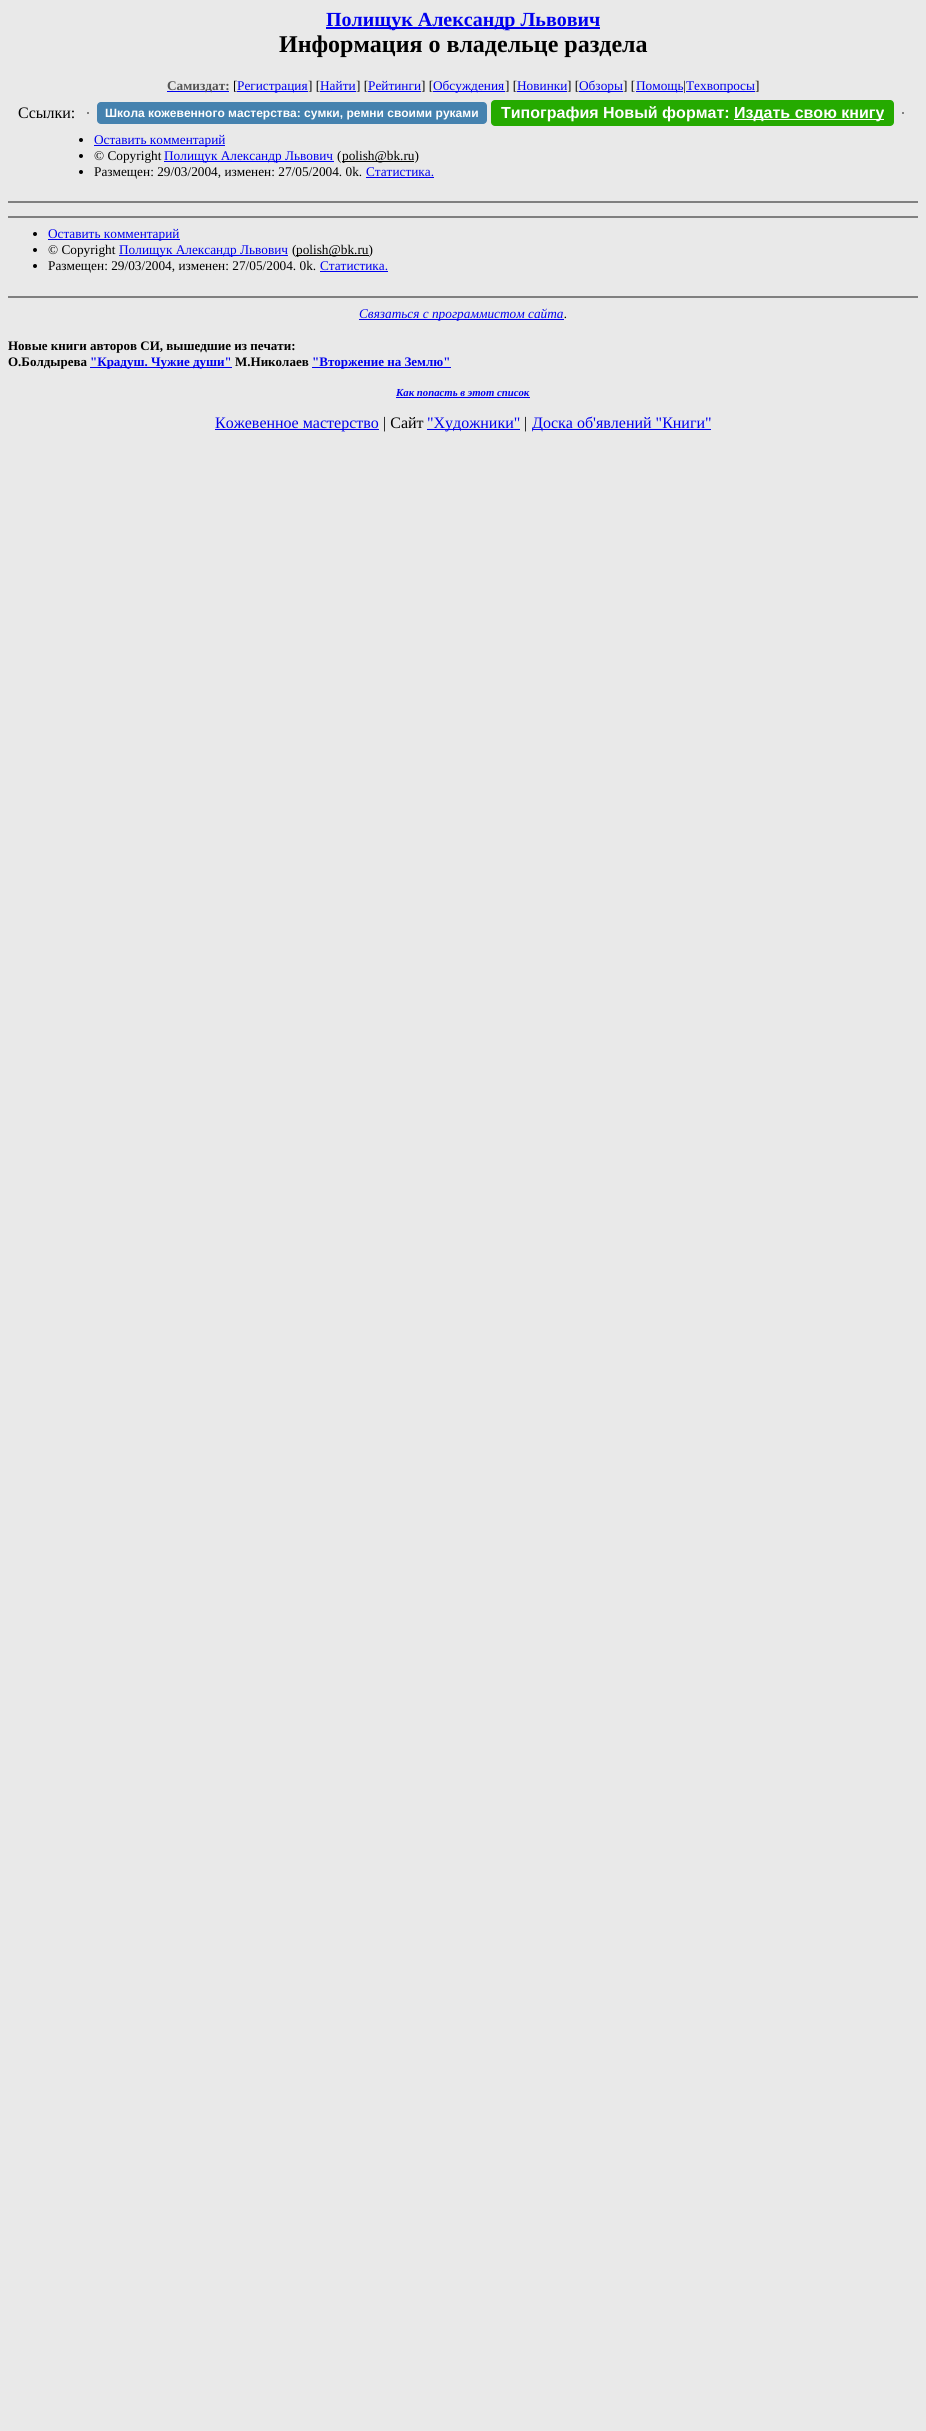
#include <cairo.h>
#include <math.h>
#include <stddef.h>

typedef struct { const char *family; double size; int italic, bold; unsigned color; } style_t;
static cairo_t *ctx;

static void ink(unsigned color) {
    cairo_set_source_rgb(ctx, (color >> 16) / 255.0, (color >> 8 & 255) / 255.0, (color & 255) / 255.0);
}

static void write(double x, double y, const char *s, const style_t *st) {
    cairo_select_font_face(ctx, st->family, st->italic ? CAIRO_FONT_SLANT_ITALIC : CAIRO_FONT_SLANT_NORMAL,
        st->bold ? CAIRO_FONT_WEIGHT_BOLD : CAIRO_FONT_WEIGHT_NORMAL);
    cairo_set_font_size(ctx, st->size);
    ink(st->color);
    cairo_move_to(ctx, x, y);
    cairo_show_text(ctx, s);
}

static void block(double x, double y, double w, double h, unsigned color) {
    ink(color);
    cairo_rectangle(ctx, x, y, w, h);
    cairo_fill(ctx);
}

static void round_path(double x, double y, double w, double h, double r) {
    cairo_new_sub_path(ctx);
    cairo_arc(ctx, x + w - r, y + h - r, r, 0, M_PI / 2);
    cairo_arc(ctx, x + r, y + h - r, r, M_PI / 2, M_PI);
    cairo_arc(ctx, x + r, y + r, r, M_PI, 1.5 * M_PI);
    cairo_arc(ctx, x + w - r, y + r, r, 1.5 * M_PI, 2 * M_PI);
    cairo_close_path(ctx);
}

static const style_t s1 = {"Liberation Serif", 20, 0, 1, 0x0000ee};
static const style_t s2 = {"Liberation Serif", 24, 0, 1, 0x000000};
static const style_t s3 = {"Liberation Serif", 13.3, 0, 1, 0x555555};
static const style_t s4 = {"Liberation Serif", 13.3, 0, 0, 0x000000};
static const style_t s5 = {"Liberation Serif", 13.3, 0, 0, 0x0000ee};
static const style_t s6 = {"Liberation Serif", 16, 0, 0, 0x000000};
static const style_t s7 = {"Liberation Sans", 12, 0, 1, 0xffffff};
static const style_t s8 = {"Liberation Sans", 16, 0, 1, 0xffffff};
static const style_t s9 = {"Liberation Serif", 13.3, 1, 0, 0x0000ee};
static const style_t s10 = {"Liberation Serif", 13.3, 1, 0, 0x000000};
static const style_t s11 = {"Liberation Serif", 13, 0, 1, 0x000000};
static const style_t s12 = {"Liberation Serif", 13, 0, 1, 0x0000ee};
static const style_t s13 = {"Liberation Serif", 10.75, 1, 1, 0x0000ee};
static const style_t s14 = {"Liberation Serif", 16, 0, 0, 0x0000ee};

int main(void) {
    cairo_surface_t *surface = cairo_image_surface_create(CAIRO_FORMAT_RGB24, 926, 2431);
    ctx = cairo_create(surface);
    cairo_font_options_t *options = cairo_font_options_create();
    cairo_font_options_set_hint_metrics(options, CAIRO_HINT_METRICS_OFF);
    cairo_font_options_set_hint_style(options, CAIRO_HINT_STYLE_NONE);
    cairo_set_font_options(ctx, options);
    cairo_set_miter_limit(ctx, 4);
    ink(0xe9e9e9);
    cairo_paint(ctx);
    block(326, 27, 274, 2, 0x0000ee);
    write(326, 26, "Полищук Александр Львович", &s1);
    write(279, 52, "Информация о владельце раздела", &s2);
    block(167, 91, 62, 1, 0x0000ee);
    write(167, 90, "Самиздат:", &s3);
    write(233, 90, "[", &s4);
    block(237, 91, 71, 1, 0x0000ee);
    write(237, 90, "Регистрация", &s5);
    write(308, 90, "] [", &s4);
    block(320, 91, 36, 1, 0x0000ee);
    write(320, 90, "Найти", &s5);
    write(356, 90, "] [", &s4);
    block(368, 91, 53, 1, 0x0000ee);
    write(368, 90, "Рейтинги", &s5);
    write(421, 90, "] [", &s4);
    block(433, 91, 72, 1, 0x0000ee);
    write(433, 90, "Обсуждения", &s5);
    write(505, 90, "] [", &s4);
    block(517, 91, 50, 1, 0x0000ee);
    write(517, 90, "Новинки", &s5);
    write(567, 90, "] [", &s4);
    block(579, 91, 44, 1, 0x0000ee);
    write(579, 90, "Обзоры", &s5);
    write(623, 90, "] [", &s4);
    block(636, 91, 47, 1, 0x0000ee);
    write(636, 90, "Помощь", &s5);
    write(683, 90, "|", &s4);
    block(686, 91, 69, 1, 0x0000ee);
    write(686, 90, "Техвопросы", &s5);
    write(755, 90, "]", &s4);
    write(18, 118, "Ссылки:", &s6);
    block(87, 112, 2, 2, 0x808080);
    ink(0x4582af);
    round_path(97, 102, 390, 22, 4);
    cairo_fill(ctx);
    write(105, 117, "Школа кожевенного мастерства: сумки, ремни своими руками", &s7);
    ink(0x25aa00);
    round_path(491, 100, 403, 26, 4);
    cairo_fill(ctx);
    write(501, 118, "Типография Новый формат:", &s8);
    block(734, 119, 150, 1, 0xffffff);
    write(734, 118, "Издать свою книгу", &s8);
    block(902, 112, 2, 2, 0x808080);
    ink(0x000000);
    cairo_new_path(ctx);
    cairo_arc(ctx, 81, 140, 2, 0, 2 * M_PI);
    cairo_fill(ctx);
    block(94, 145, 131, 1, 0x0000ee);
    write(94, 144, "Оставить комментарий", &s5);
    ink(0x000000);
    cairo_new_path(ctx);
    cairo_arc(ctx, 81, 156, 2, 0, 2 * M_PI);
    cairo_fill(ctx);
    write(94, 160, "© Copyright", &s4);
    block(164, 161, 170, 1, 0x0000ee);
    write(164, 160, "Полищук Александр Львович", &s5);
    write(337, 160, "(", &s4);
    block(342, 161, 72, 1, 0x000000);
    write(342, 160, "polish@bk.ru)", &s4);
    cairo_new_path(ctx);
    cairo_arc(ctx, 81, 172, 2, 0, 2 * M_PI);
    cairo_fill(ctx);
    write(94, 176, "Размещен: 29/03/2004, изменен: 27/05/2004. 0k.", &s4);
    write(366, 176, "Статистика.", &s5);
    block(366, 177, 68, 1, 0x0000ee);
    block(8, 201, 910, 2, 0x808080);
    block(8, 216, 910, 2, 0x808080);
    ink(0x000000);
    cairo_new_path(ctx);
    cairo_arc(ctx, 35, 234, 2, 0, 2 * M_PI);
    cairo_fill(ctx);
    block(48, 239, 132, 1, 0x0000ee);
    write(48, 238, "Оставить комментарий", &s5);
    ink(0x000000);
    cairo_new_path(ctx);
    cairo_arc(ctx, 35, 250, 2, 0, 2 * M_PI);
    cairo_fill(ctx);
    write(48, 254, "© Copyright", &s4);
    block(119, 255, 169, 1, 0x0000ee);
    write(119, 254, "Полищук Александр Львович", &s5);
    write(292, 254, "(", &s4);
    block(296, 255, 73, 1, 0x000000);
    write(296, 254, "polish@bk.ru)", &s4);
    cairo_new_path(ctx);
    cairo_arc(ctx, 35, 266, 2, 0, 2 * M_PI);
    cairo_fill(ctx);
    write(48, 270, "Размещен: 29/03/2004, изменен: 27/05/2004. 0k.", &s4);
    write(320, 270, "Статистика.", &s5);
    block(320, 271, 68, 1, 0x0000ee);
    block(8, 296, 910, 2, 0x808080);
    block(359, 319, 205, 1, 0x0000ee);
    write(359, 318, "Связаться с программистом сайта", &s9);
    write(564, 318, ".", &s10);
    write(8, 350, "Новые книги авторов СИ, вышедшие из печати:", &s11);
    write(8, 366, "О.Болдырева", &s11);
    block(90, 367, 142, 1, 0x0000ee);
    write(90, 366, "\"Крадуш. Чужие души\"", &s12);
    write(235, 366, "М.Николаев", &s11);
    block(312, 367, 139, 1, 0x0000ee);
    write(312, 366, "\"Вторжение на Землю\"", &s12);
    write(396, 396, "Как попасть в этoт список", &s13);
    block(396, 397, 134, 1, 0x0000ee);
    block(215, 429, 164, 1, 0x0000ee);
    write(215, 428, "Кожевенное мастерство", &s14);
    write(383, 428, "| Сайт", &s6);
    block(427, 429, 93, 1, 0x0000ee);
    write(427, 428, "\"Художники\"", &s14);
    write(524, 428, "|", &s6);
    block(532, 429, 179, 1, 0x0000ee);
    write(532, 428, "Доска об'явлений \"Книги\"", &s14);
    cairo_surface_write_to_png(surface, "screenshot.png");
    cairo_font_options_destroy(options);
    cairo_destroy(ctx);
    cairo_surface_destroy(surface);
    return 0;
}
